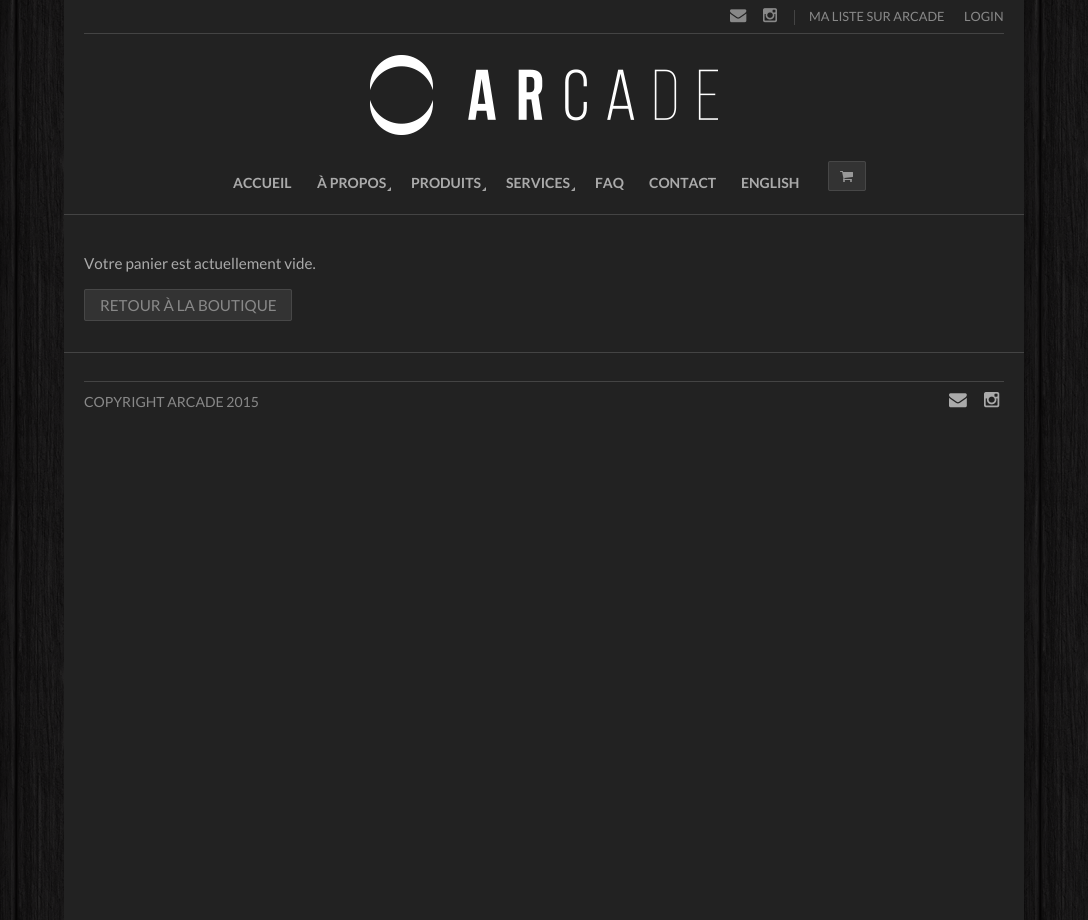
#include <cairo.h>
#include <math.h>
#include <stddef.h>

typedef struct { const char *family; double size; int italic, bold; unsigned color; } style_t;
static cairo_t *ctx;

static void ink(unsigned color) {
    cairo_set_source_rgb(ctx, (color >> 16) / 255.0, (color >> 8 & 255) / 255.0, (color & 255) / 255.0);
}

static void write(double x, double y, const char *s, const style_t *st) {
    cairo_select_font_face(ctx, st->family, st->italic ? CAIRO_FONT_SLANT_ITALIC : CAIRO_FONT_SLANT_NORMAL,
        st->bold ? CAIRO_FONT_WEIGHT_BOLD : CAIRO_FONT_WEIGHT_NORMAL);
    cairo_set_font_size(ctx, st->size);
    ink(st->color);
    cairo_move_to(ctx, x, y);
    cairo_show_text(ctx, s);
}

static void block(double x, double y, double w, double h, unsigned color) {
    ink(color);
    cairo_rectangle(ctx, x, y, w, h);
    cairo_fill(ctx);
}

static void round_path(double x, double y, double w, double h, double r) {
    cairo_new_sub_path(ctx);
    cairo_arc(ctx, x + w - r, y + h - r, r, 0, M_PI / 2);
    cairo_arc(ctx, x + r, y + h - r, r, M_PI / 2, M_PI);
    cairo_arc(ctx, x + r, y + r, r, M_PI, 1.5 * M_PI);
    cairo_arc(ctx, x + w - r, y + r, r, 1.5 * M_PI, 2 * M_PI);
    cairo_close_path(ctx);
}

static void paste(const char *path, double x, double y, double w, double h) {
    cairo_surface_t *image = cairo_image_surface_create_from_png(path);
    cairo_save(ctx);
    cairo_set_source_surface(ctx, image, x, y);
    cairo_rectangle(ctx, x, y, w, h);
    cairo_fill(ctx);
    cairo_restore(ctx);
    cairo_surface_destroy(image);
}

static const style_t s1 = {"Lato", 12.75, 0, 0, 0x888888};
static const style_t s2 = {"Lato", 14, 0, 1, 0xaaaaaa};
static const style_t s3 = {"Lato", 15.2, 0, 0, 0xaaaaaa};
static const style_t s4 = {"Lato", 15.2, 0, 0, 0x888888};
static const style_t s5 = {"Lato", 14, 0, 0, 0x888888};

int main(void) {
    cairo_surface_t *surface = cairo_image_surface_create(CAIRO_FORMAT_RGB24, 1088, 920);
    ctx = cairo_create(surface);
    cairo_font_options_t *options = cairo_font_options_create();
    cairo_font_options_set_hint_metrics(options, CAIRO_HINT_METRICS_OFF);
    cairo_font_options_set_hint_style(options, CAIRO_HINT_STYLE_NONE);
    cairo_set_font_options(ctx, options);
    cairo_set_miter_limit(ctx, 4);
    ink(0xffffff);
    cairo_paint(ctx);
    paste("pic1.png", 0, 0, 1088, 920);
    block(64, 0, 960, 920, 0x222222);
    block(64, 214, 960, 1, 0x444444);
    block(84, 33, 920, 1, 0x444444);
    paste("pic2.png", 730, 9, 17, 14);
    paste("pic3.png", 763, 8, 14, 15);
    block(794, 10, 1, 15, 0x444444);
    write(809, 21, "MA LISTE SUR ARCADE", &s1);
    write(964, 21, "LOGIN", &s1);
    paste("pic4.png", 370, 55, 348, 80);
    write(233, 188, "ACCUEIL", &s2);
    write(317, 188, "À PROPOS", &s2);
    cairo_new_path(ctx);
    cairo_move_to(ctx, 391, 187);
    cairo_line_to(ctx, 391, 191);
    cairo_line_to(ctx, 389, 189);
    cairo_close_path(ctx);
    cairo_fill(ctx);
    cairo_new_path(ctx);
    cairo_move_to(ctx, 391, 191);
    cairo_line_to(ctx, 387, 191);
    cairo_line_to(ctx, 389, 189);
    cairo_close_path(ctx);
    cairo_fill(ctx);
    write(411, 188, "PRODUITS", &s2);
    cairo_new_path(ctx);
    cairo_move_to(ctx, 486, 187);
    cairo_line_to(ctx, 486, 191);
    cairo_line_to(ctx, 484, 189);
    cairo_close_path(ctx);
    cairo_fill(ctx);
    cairo_new_path(ctx);
    cairo_move_to(ctx, 486, 191);
    cairo_line_to(ctx, 482, 191);
    cairo_line_to(ctx, 484, 189);
    cairo_close_path(ctx);
    cairo_fill(ctx);
    write(506, 188, "SERVICES", &s2);
    cairo_new_path(ctx);
    cairo_move_to(ctx, 575, 187);
    cairo_line_to(ctx, 575, 191);
    cairo_line_to(ctx, 573, 189);
    cairo_close_path(ctx);
    cairo_fill(ctx);
    cairo_new_path(ctx);
    cairo_move_to(ctx, 575, 191);
    cairo_line_to(ctx, 571, 191);
    cairo_line_to(ctx, 573, 189);
    cairo_close_path(ctx);
    cairo_fill(ctx);
    write(595, 188, "FAQ", &s2);
    write(649, 188, "CONTACT", &s2);
    write(741, 188, "ENGLISH", &s2);
    ink(0x333333);
    round_path(828.5, 161.5, 37, 29, 1.5);
    cairo_fill_preserve(ctx);
    ink(0x474747);
    cairo_set_line_width(ctx, 1);
    cairo_stroke(ctx);
    paste("pic5.png", 840, 171, 13, 11);
    write(84, 269, "Votre panier est actuellement vide.", &s3);
    ink(0x333333);
    round_path(84.5, 289.5, 207, 31, 1.5);
    cairo_fill_preserve(ctx);
    ink(0x474747);
    cairo_stroke(ctx);
    write(100, 311, "RETOUR À LA BOUTIQUE", &s4);
    block(64, 352, 960, 1, 0x444444);
    block(84, 381, 920, 1, 0x444444);
    write(84, 407, "COPYRIGHT ARCADE 2015", &s5);
    paste("pic6.png", 949, 393, 18, 15);
    paste("pic7.png", 984, 392, 16, 16);
    cairo_surface_write_to_png(surface, "screenshot.png");
    cairo_font_options_destroy(options);
    cairo_destroy(ctx);
    cairo_surface_destroy(surface);
    return 0;
}
